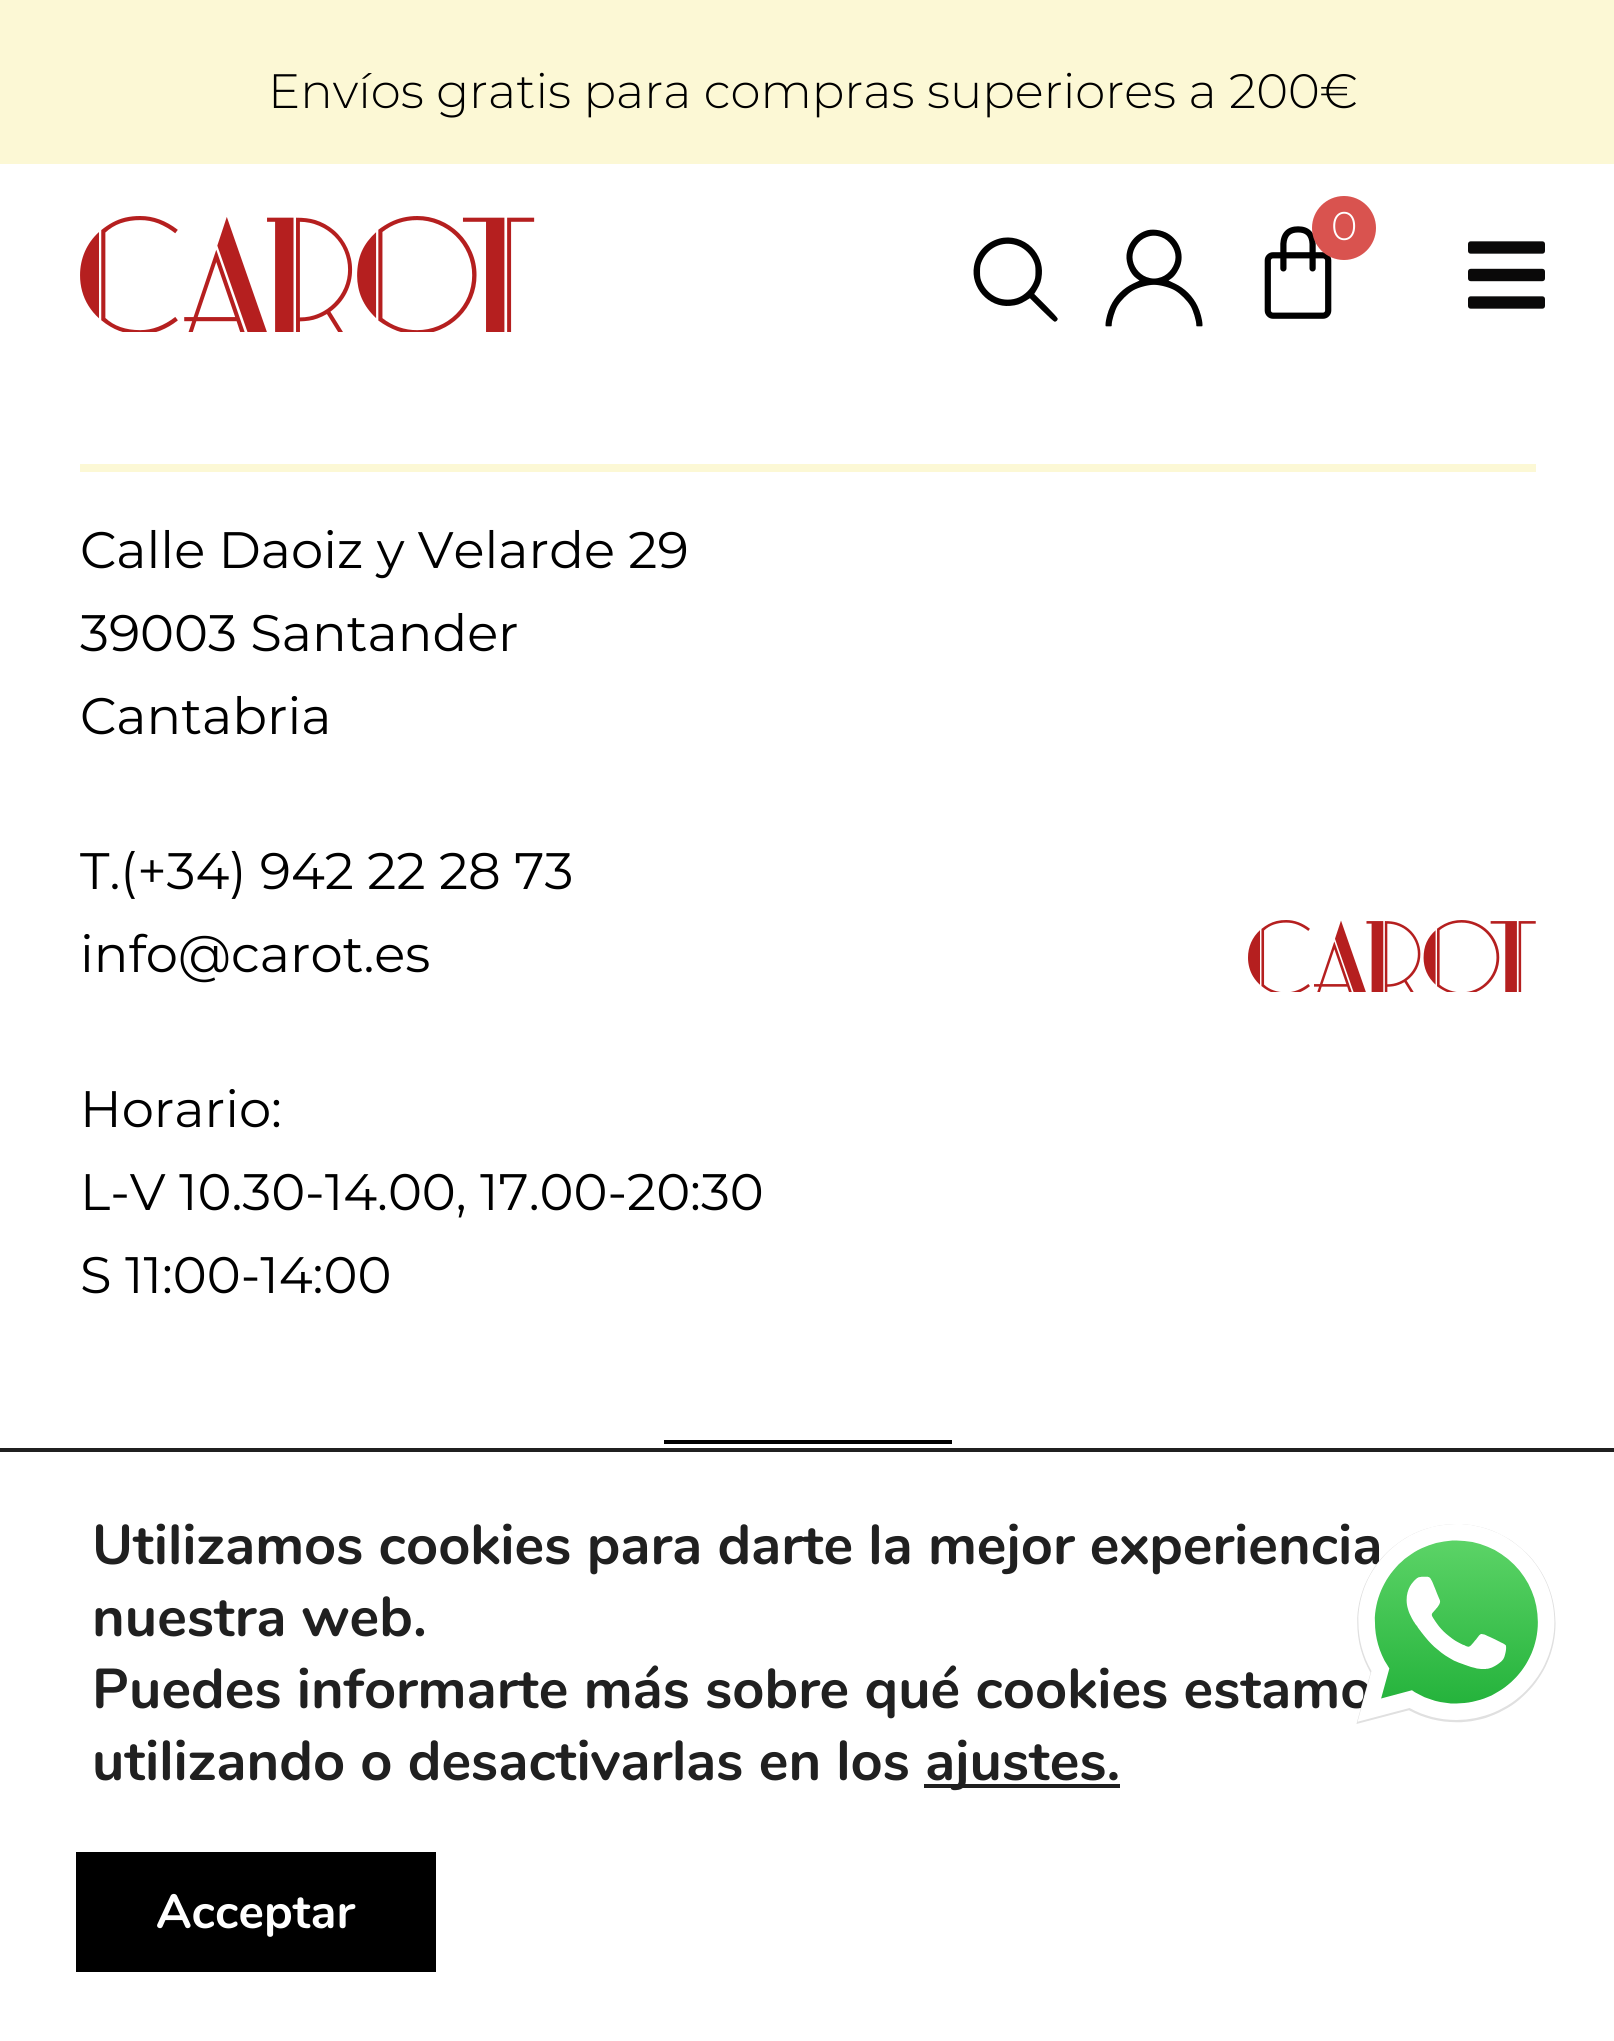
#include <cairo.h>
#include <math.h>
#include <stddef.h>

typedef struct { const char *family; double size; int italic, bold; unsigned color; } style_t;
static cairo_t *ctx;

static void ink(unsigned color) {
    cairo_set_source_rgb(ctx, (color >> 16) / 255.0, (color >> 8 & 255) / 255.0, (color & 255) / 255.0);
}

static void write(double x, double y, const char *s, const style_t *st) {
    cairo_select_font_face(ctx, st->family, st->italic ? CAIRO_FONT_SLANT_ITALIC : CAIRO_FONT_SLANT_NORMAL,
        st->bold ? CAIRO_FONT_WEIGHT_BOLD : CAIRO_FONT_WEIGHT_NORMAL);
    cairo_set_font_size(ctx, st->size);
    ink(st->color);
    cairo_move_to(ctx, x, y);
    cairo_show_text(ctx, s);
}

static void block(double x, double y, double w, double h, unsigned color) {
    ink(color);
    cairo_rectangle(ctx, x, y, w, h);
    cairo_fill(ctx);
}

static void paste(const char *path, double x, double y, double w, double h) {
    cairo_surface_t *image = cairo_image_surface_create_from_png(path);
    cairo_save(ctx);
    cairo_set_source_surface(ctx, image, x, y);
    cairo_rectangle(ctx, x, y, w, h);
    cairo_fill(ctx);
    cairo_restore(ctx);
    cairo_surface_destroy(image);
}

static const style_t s1 = {"Montserrat Light", 48.25, 0, 0, 0x000000};
static const style_t s2 = {"Montserrat Light", 40, 0, 0, 0xffffff};
static const style_t s3 = {"Montserrat", 51.25, 0, 0, 0x000000};
static const style_t s4 = {"Nunito", 56, 0, 1, 0x202020};
static const style_t s5 = {"Nunito", 48, 0, 1, 0xffffff};

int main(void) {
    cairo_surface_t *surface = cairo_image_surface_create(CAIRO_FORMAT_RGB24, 1614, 2041);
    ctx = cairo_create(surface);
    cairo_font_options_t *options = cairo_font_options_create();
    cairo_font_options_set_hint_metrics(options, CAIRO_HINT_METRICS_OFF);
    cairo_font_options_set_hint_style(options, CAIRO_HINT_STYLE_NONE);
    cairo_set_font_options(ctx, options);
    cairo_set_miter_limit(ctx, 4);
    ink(0xffffff);
    cairo_paint(ctx);
    block(0, 0, 1614, 164, 0xfcf8d5);
    write(268, 108, "Envíos gratis para compras superiores a 200€", &s1);
    paste("pic1.png", 80, 216, 455, 116);
    paste("pic2.png", 1264, 226, 68, 93);
    ink(0xd9534f);
    cairo_arc(ctx, 1344, 228, 32, 0, 2 * M_PI);
    cairo_fill(ctx);
    write(1331, 240, "0", &s2);
    paste("pic3.png", 973, 237, 85, 85);
    paste("pic4.png", 1105, 229, 98, 99);
    paste("pic5.png", 1468, 241, 77, 68);
    block(80, 464, 1456, 8, 0xfcf8d5);
    write(80, 568, "Calle Daoiz y Velarde 29", &s3);
    write(80, 651, "39003 Santander", &s3);
    write(80, 734, "Cantabria", &s3);
    write(80, 889, "T.(+34) 942 22 28 73", &s3);
    write(80, 972, "info@carot.es", &s3);
    write(80, 1127, "Horario:", &s3);
    write(80, 1210, "L-V 10.30-14.00, 17.00-20:30", &s3);
    write(80, 1293, "S 11:00-14:00", &s3);
    paste("pic6.png", 1248, 920, 288, 72);
    block(664, 1440, 288, 4, 0x000000);
    block(0, 1448, 1614, 4, 0x202020);
    write(92, 1564, "Utilizamos cookies para darte la mejor experiencia", &s4);
    write(92, 1636, "nuestra web.", &s4);
    write(92, 1708, "Puedes informarte más sobre qué cookies estamo", &s4);
    write(92, 1780, "utilizando o desactivarlas en los", &s4);
    block(924, 1784, 196, 4, 0x202020);
    write(925, 1780, "ajustes.", &s4);
    block(76, 1852, 360, 120, 0x000000);
    write(156, 1928, "Acceptar", &s5);
    paste("pic7.png", 1356, 1524, 200, 200);
    cairo_surface_write_to_png(surface, "screenshot.png");
    cairo_font_options_destroy(options);
    cairo_destroy(ctx);
    cairo_surface_destroy(surface);
    return 0;
}
